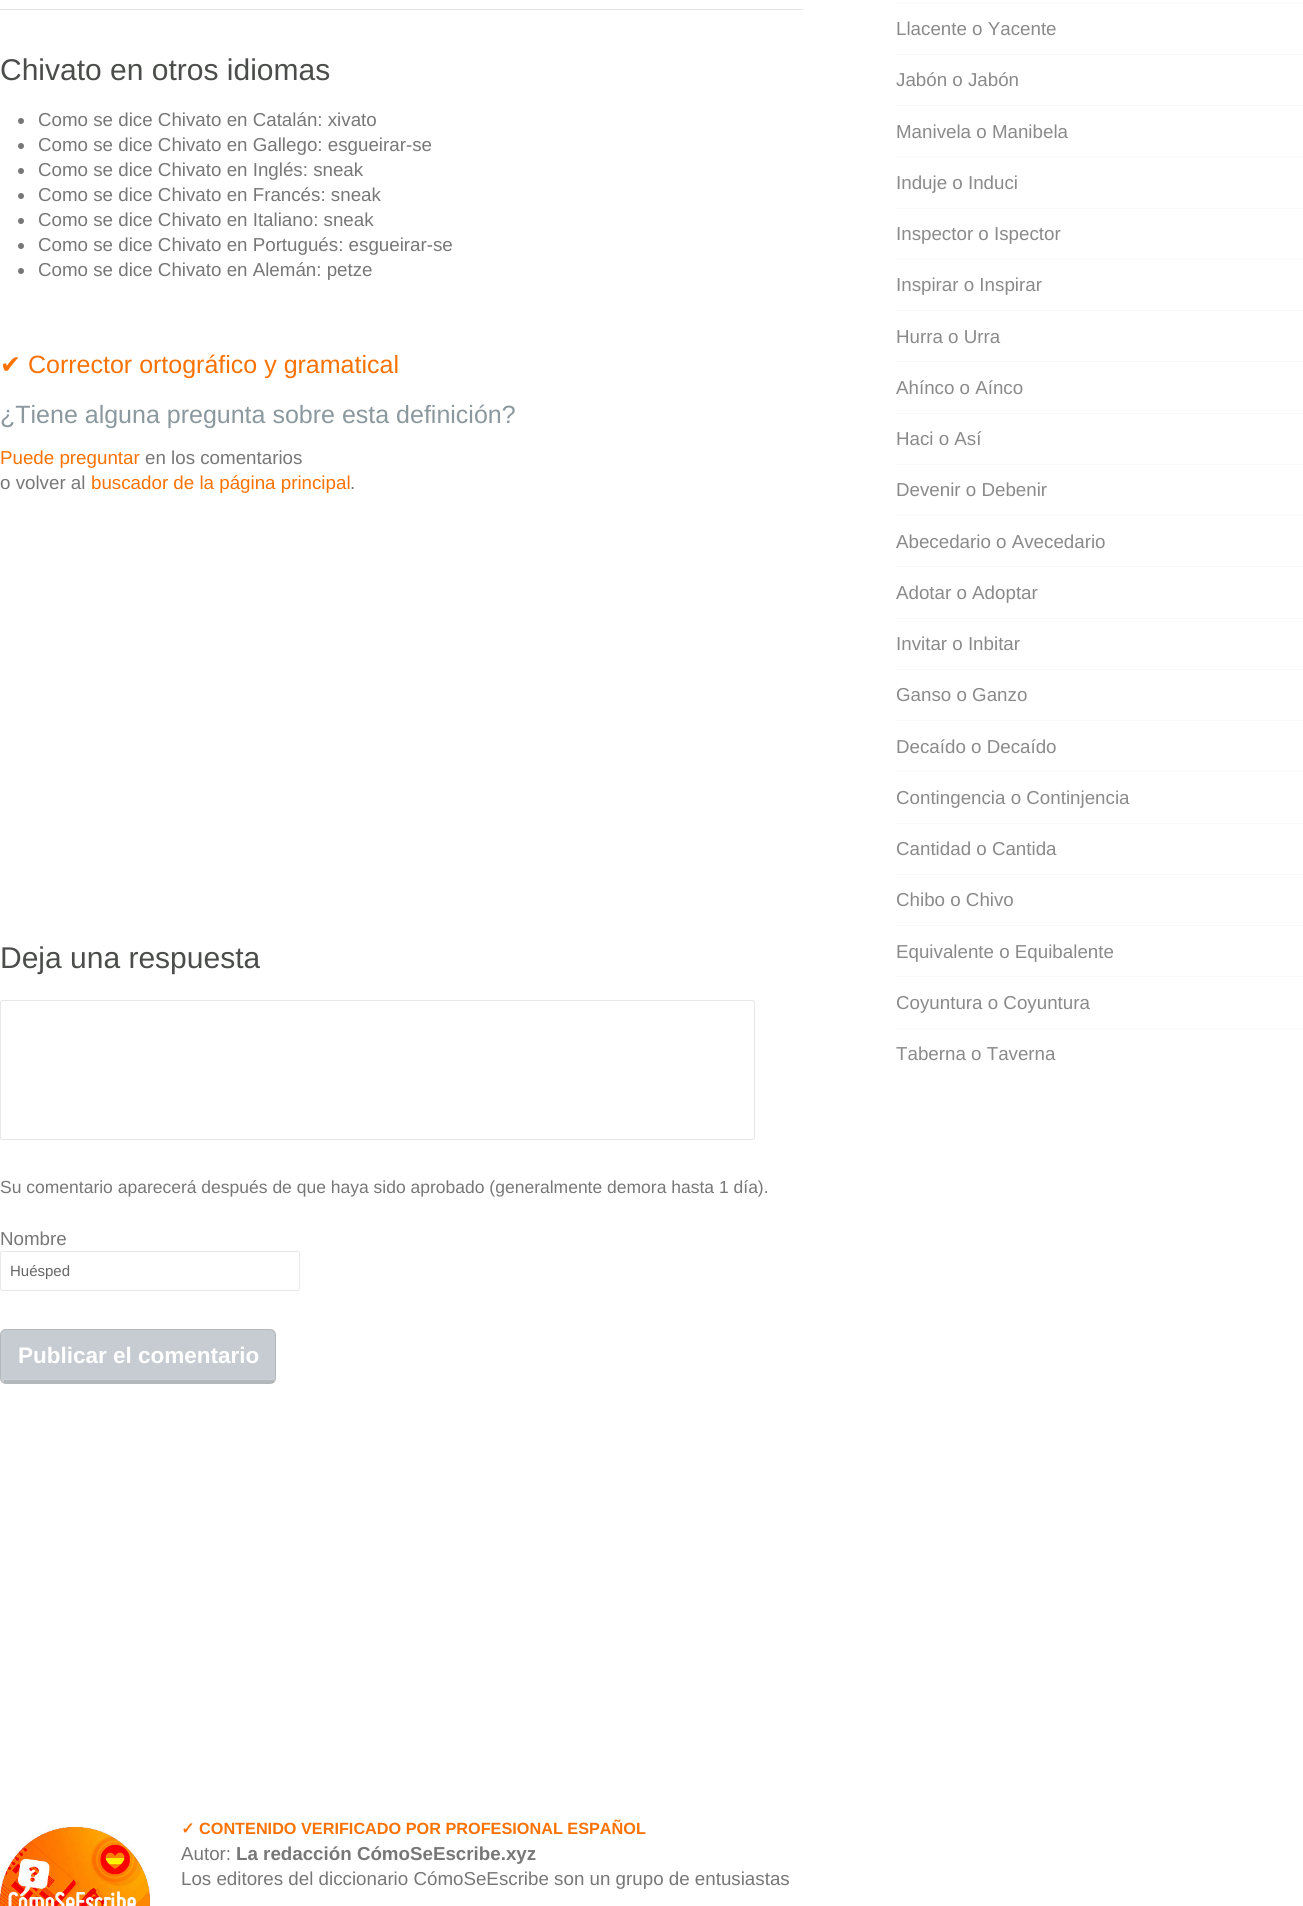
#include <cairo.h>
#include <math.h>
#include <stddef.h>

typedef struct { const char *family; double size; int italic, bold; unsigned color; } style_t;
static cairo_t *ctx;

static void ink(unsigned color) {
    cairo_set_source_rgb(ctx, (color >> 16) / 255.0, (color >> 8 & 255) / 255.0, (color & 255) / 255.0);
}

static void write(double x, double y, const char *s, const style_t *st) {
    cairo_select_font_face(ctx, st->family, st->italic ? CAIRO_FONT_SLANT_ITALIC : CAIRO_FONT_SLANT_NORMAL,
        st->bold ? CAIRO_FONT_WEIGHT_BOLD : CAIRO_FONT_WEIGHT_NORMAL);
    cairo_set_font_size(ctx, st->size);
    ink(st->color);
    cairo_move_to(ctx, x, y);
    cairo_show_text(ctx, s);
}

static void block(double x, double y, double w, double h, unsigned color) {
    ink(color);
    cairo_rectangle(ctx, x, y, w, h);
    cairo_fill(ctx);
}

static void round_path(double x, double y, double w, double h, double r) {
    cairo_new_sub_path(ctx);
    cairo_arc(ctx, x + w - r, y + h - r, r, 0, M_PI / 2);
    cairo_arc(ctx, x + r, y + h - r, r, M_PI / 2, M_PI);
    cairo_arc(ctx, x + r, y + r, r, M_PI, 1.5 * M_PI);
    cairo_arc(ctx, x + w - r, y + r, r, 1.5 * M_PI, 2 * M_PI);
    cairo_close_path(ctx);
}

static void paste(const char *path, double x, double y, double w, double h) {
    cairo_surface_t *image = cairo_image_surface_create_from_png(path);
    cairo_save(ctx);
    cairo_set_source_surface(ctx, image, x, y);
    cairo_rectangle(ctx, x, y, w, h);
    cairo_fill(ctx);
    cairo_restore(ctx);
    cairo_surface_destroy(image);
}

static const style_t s1 = {"Liberation Sans", 30, 0, 0, 0x4b4d4b};
static const style_t s2 = {"Liberation Sans", 18.75, 0, 0, 0x777777};
static const style_t s3 = {"DejaVu Sans", 25, 0, 0, 0xf97203};
static const style_t s4 = {"Liberation Sans", 25, 0, 0, 0xf97203};
static const style_t s5 = {"Liberation Sans", 25, 0, 0, 0x8b989e};
static const style_t s6 = {"Liberation Sans", 18.75, 0, 0, 0xf97203};
static const style_t s7 = {"Liberation Sans", 17.5, 0, 0, 0x777777};
static const style_t s8 = {"Liberation Sans", 15, 0, 0, 0x666666};
static const style_t s9 = {"Liberation Sans", 22.5, 0, 1, 0xffffff};
static const style_t s10 = {"DejaVu Sans", 16.25, 0, 1, 0xf97203};
static const style_t s11 = {"Liberation Sans", 16.25, 0, 1, 0xf97203};
static const style_t s12 = {"Liberation Sans", 18.75, 0, 1, 0x777777};
static const style_t s13 = {"Liberation Sans", 18.75, 0, 0, 0x8a8a8a};

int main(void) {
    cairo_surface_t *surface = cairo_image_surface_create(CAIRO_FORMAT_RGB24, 1303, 1906);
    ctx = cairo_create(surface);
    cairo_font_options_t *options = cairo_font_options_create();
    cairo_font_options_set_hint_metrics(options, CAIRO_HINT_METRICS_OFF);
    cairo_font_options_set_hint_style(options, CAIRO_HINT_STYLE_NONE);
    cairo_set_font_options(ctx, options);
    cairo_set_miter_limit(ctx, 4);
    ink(0xffffff);
    cairo_paint(ctx);
    block(0, 9, 803, 1, 0xe3e3e3);
    write(0, 80, "Chivato en otros idiomas", &s1);
    ink(0x777777);
    cairo_new_path(ctx);
    cairo_arc(ctx, 21, 121, 3, 0, 2 * M_PI);
    cairo_fill(ctx);
    write(38, 126, "Como se dice Chivato en Catalán: xivato", &s2);
    cairo_new_path(ctx);
    cairo_arc(ctx, 21, 146, 3, 0, 2 * M_PI);
    cairo_fill(ctx);
    write(38, 151, "Como se dice Chivato en Gallego: esgueirar-se", &s2);
    cairo_new_path(ctx);
    cairo_arc(ctx, 21, 171, 3, 0, 2 * M_PI);
    cairo_fill(ctx);
    write(38, 176, "Como se dice Chivato en Inglés: sneak", &s2);
    cairo_new_path(ctx);
    cairo_arc(ctx, 21, 196, 3, 0, 2 * M_PI);
    cairo_fill(ctx);
    write(38, 201, "Como se dice Chivato en Francés: sneak", &s2);
    cairo_new_path(ctx);
    cairo_arc(ctx, 21, 221, 3, 0, 2 * M_PI);
    cairo_fill(ctx);
    write(38, 226, "Como se dice Chivato en Italiano: sneak", &s2);
    cairo_new_path(ctx);
    cairo_arc(ctx, 21, 246, 3, 0, 2 * M_PI);
    cairo_fill(ctx);
    write(38, 251, "Como se dice Chivato en Portugués: esgueirar-se", &s2);
    cairo_new_path(ctx);
    cairo_arc(ctx, 21, 271, 3, 0, 2 * M_PI);
    cairo_fill(ctx);
    write(38, 276, "Como se dice Chivato en Alemán: petze", &s2);
    write(0, 373, "✔", &s3);
    write(28, 373, "Corrector ortográfico y gramatical", &s4);
    write(0, 423, "¿Tiene alguna pregunta sobre esta definición?", &s5);
    write(0, 464, "Puede preguntar", &s6);
    write(145, 464, "en los comentarios", &s2);
    write(0, 489, "o volver al", &s2);
    write(91, 489, "buscador de la página principal", &s6);
    write(350, 489, ".", &s2);
    write(0, 968, "Deja una respuesta", &s1);
    round_path(0.5, 1000.5, 754, 139, 2);
    ink(0xe7e7e7);
    cairo_set_line_width(ctx, 1);
    cairo_stroke(ctx);
    write(0, 1193, "Su comentario aparecerá después de que haya sido aprobado (generalmente demora hasta 1 día).", &s7);
    write(0, 1245, "Nombre", &s2);
    round_path(0.5, 1251.5, 299, 39, 2);
    ink(0xe7e7e7);
    cairo_stroke(ctx);
    write(10, 1276, "Huésped", &s8);
    ink(0xc6ccd2);
    round_path(0, 1329, 276, 55, 6);
    cairo_fill(ctx);
    ink(0xccd1d7);
    cairo_new_path(ctx);
    cairo_move_to(ctx, 1, 1377);
    cairo_curve_to(ctx, 1, 1379, 4, 1380, 6, 1380);
    cairo_line_to(ctx, 270, 1380);
    cairo_curve_to(ctx, 273, 1380, 275, 1379, 275, 1376);
    cairo_curve_to(ctx, 275, 1378, 273, 1379, 270, 1379);
    cairo_line_to(ctx, 6, 1379);
    cairo_curve_to(ctx, 4, 1379, 2, 1378, 1, 1377);
    cairo_close_path(ctx);
    cairo_fill(ctx);
    round_path(0.5, 1329.5, 275, 54, 5.5);
    cairo_set_source_rgba(ctx, 0, 0, 0, 0.1);
    cairo_stroke(ctx);
    cairo_rectangle(ctx, 4, 1380, 270, 3);
    cairo_fill(ctx);
    write(18, 1363, "Publicar el comentario", &s9);
    paste("pic1.png", 0, 1827, 150, 79);
    write(181, 1834, "✓", &s10);
    write(199, 1834, "CONTENIDO VERIFICADO POR PROFESIONAL ESPAÑOL", &s11);
    write(181, 1860, "Autor:", &s2);
    write(236, 1860, "La redacción CómoSeEscribe.xyz", &s12);
    write(181, 1885, "Los editores del diccionario CómoSeEscribe son un grupo de entusiastas", &s2);
    block(896, 3, 407, 1, 0xf9f9f9);
    block(896, 54, 407, 1, 0xf9f9f9);
    write(896, 35, "Llacente o Yacente", &s13);
    block(896, 105, 407, 1, 0xf9f9f9);
    write(896, 86, "Jabón o Jabón", &s13);
    block(896, 156, 407, 1, 0xf9f9f9);
    write(896, 138, "Manivela o Manibela", &s13);
    block(896, 208, 407, 1, 0xf9f9f9);
    write(896, 189, "Induje o Induci", &s13);
    block(896, 259, 407, 1, 0xf9f9f9);
    write(896, 240, "Inspector o Ispector", &s13);
    block(896, 310, 407, 1, 0xf9f9f9);
    write(896, 291, "Inspirar o Inspirar", &s13);
    block(896, 361, 407, 1, 0xf9f9f9);
    write(896, 343, "Hurra o Urra", &s13);
    block(896, 413, 407, 1, 0xf9f9f9);
    write(896, 394, "Ahínco o Aínco", &s13);
    block(896, 464, 407, 1, 0xf9f9f9);
    write(896, 445, "Haci o Así", &s13);
    block(896, 515, 407, 1, 0xf9f9f9);
    write(896, 496, "Devenir o Debenir", &s13);
    block(896, 566, 407, 1, 0xf9f9f9);
    write(896, 548, "Abecedario o Avecedario", &s13);
    block(896, 618, 407, 1, 0xf9f9f9);
    write(896, 599, "Adotar o Adoptar", &s13);
    block(896, 669, 407, 1, 0xf9f9f9);
    write(896, 650, "Invitar o Inbitar", &s13);
    block(896, 720, 407, 1, 0xf9f9f9);
    write(896, 701, "Ganso o Ganzo", &s13);
    block(896, 771, 407, 1, 0xf9f9f9);
    write(896, 753, "Decaído o Decaído", &s13);
    block(896, 823, 407, 1, 0xf9f9f9);
    write(896, 804, "Contingencia o Continjencia", &s13);
    block(896, 874, 407, 1, 0xf9f9f9);
    write(896, 855, "Cantidad o Cantida", &s13);
    block(896, 925, 407, 1, 0xf9f9f9);
    write(896, 906, "Chibo o Chivo", &s13);
    block(896, 976, 407, 1, 0xf9f9f9);
    write(896, 958, "Equivalente o Equibalente", &s13);
    block(896, 1028, 407, 1, 0xf9f9f9);
    write(896, 1009, "Coyuntura o Coyuntura", &s13);
    write(896, 1060, "Taberna o Taverna", &s13);
    cairo_surface_write_to_png(surface, "screenshot.png");
    cairo_font_options_destroy(options);
    cairo_destroy(ctx);
    cairo_surface_destroy(surface);
    return 0;
}
